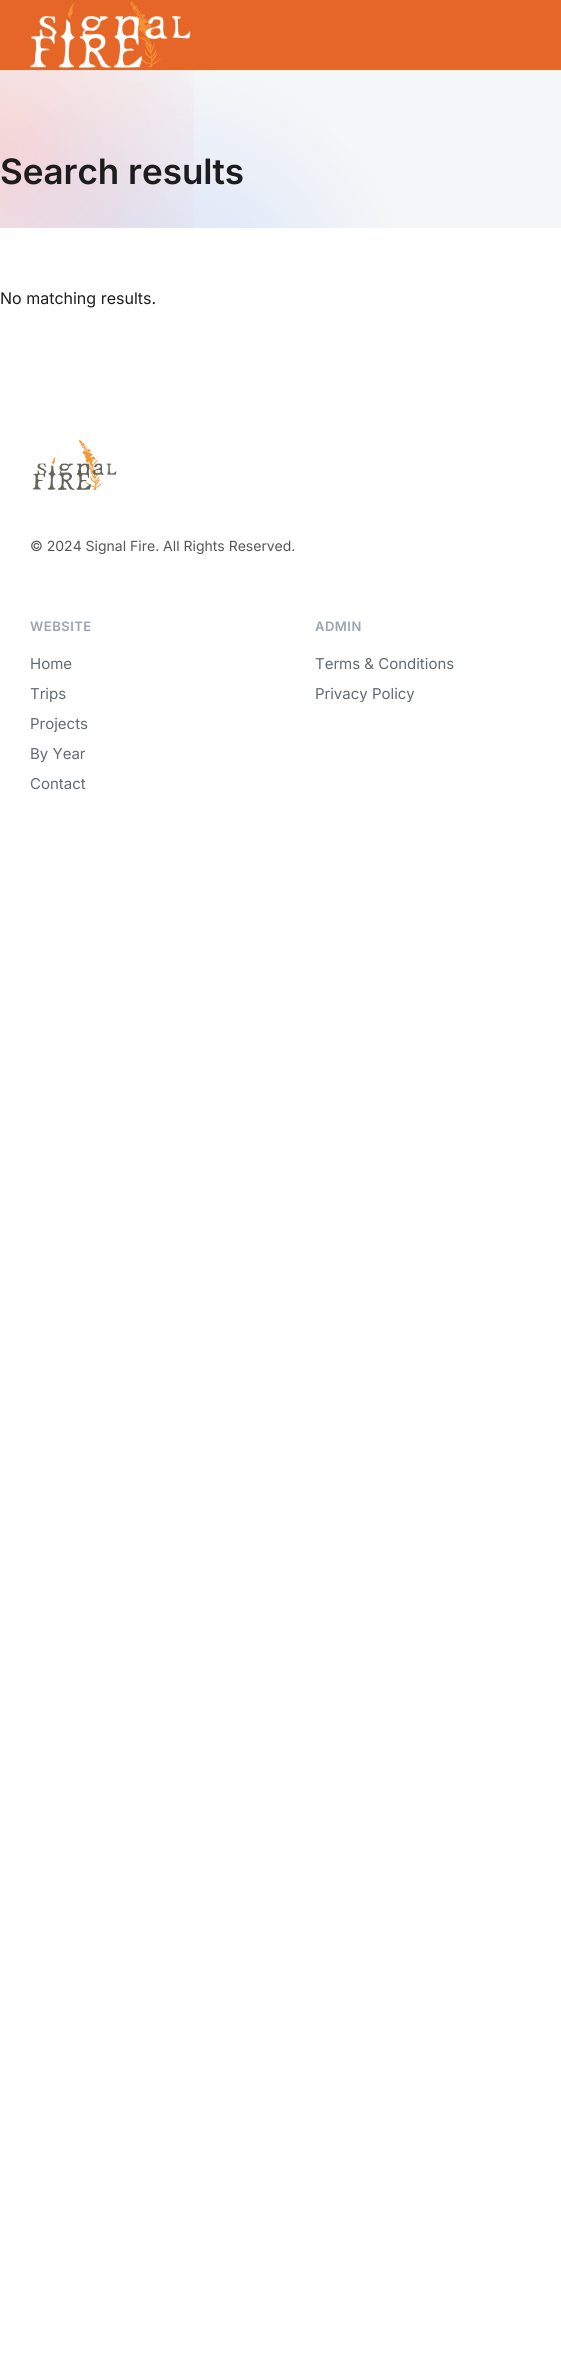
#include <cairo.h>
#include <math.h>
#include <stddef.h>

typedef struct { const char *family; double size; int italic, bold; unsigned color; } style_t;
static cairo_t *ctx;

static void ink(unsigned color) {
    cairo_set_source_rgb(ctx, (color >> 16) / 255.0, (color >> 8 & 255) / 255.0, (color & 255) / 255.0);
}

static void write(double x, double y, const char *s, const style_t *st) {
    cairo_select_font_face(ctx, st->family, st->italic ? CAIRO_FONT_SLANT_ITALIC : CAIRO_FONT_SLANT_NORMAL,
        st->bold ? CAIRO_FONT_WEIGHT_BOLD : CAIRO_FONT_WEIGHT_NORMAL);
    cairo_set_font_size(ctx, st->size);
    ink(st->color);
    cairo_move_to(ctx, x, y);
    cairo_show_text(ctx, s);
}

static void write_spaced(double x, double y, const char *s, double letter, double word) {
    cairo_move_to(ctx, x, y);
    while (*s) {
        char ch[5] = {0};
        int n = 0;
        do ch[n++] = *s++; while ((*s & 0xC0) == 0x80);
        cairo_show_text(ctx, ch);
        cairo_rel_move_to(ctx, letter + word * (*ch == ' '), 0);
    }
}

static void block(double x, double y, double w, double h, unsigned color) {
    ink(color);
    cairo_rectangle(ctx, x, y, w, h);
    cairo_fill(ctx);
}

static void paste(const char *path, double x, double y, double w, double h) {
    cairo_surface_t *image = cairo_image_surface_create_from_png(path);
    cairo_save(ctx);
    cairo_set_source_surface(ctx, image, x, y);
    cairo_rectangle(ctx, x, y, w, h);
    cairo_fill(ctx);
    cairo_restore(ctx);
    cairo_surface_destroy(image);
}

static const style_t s1 = {"Inter SemiBold", 35, 0, 0, 0x1d1d1d};
static const style_t s2 = {"Inter", 16, 0, 0, 0x1d1d1d};
static const style_t s3 = {"Inter", 14, 0, 0, 0x565656};
static const style_t s4 = {"Inter", 15, 0, 0, 0x626a72};

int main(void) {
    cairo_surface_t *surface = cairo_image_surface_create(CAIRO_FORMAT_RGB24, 561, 2358);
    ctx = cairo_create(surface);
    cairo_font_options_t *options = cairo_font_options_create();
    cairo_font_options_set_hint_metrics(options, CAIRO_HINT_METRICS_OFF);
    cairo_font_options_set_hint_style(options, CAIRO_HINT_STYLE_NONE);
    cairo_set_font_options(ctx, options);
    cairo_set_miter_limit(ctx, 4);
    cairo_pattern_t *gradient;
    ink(0xffffff);
    cairo_paint(ctx);
    block(0, 0, 561, 70, 0xe56626);
    paste("pic1.png", 30, 2, 161, 66);
    gradient = cairo_pattern_create_radial(168, 307, 0, 168, 307, 459);
    cairo_pattern_add_color_stop_rgba(gradient, 0, 0.843, 0.89, 0.976, 1);
    cairo_pattern_add_color_stop_rgba(gradient, 0.54, 0.961, 0.965, 0.969, 1);
    cairo_set_source(ctx, gradient);
    cairo_pattern_destroy(gradient);
    cairo_rectangle(ctx, 0, 70, 561, 158);
    cairo_fill(ctx);
    gradient = cairo_pattern_create_radial(0, 149, 0, 0, 149, 567);
    cairo_pattern_add_color_stop_rgba(gradient, 0, 1, 0.004, 0.004, 0.13);
    cairo_pattern_add_color_stop_rgba(gradient, 0.41, 1, 0.004, 0.004, 0);
    cairo_set_source(ctx, gradient);
    cairo_pattern_destroy(gradient);
    cairo_rectangle(ctx, 0, 70, 194, 158);
    cairo_fill(ctx);
    write(0, 184, "Search results", &s1);
    write(0, 304, "No matching results.", &s2);
    paste("pic2.png", 32, 439, 85, 51);
    write(30, 551, "© 2024 Signal Fire. All Rights Reserved.", &s3);
    cairo_select_font_face(ctx, "Inter SemiBold", CAIRO_FONT_SLANT_NORMAL, CAIRO_FONT_WEIGHT_NORMAL);
    cairo_set_font_size(ctx, 13);
    ink(0x99a4af);
    write_spaced(30, 631, "WEBSITE", 0.5, 0);
    write(30, 669, "Home", &s4);
    write(30, 699, "Trips", &s4);
    write(30, 729, "Projects", &s4);
    write(30, 759, "By Year", &s4);
    write(30, 789, "Contact", &s4);
    cairo_select_font_face(ctx, "Inter SemiBold", CAIRO_FONT_SLANT_NORMAL, CAIRO_FONT_WEIGHT_NORMAL);
    cairo_set_font_size(ctx, 13);
    ink(0x99a4af);
    write_spaced(315, 631, "ADMIN", 0.5, 0);
    write(315, 669, "Terms & Conditions", &s4);
    write(315, 699, "Privacy Policy", &s4);
    cairo_surface_write_to_png(surface, "screenshot.png");
    cairo_font_options_destroy(options);
    cairo_destroy(ctx);
    cairo_surface_destroy(surface);
    return 0;
}
